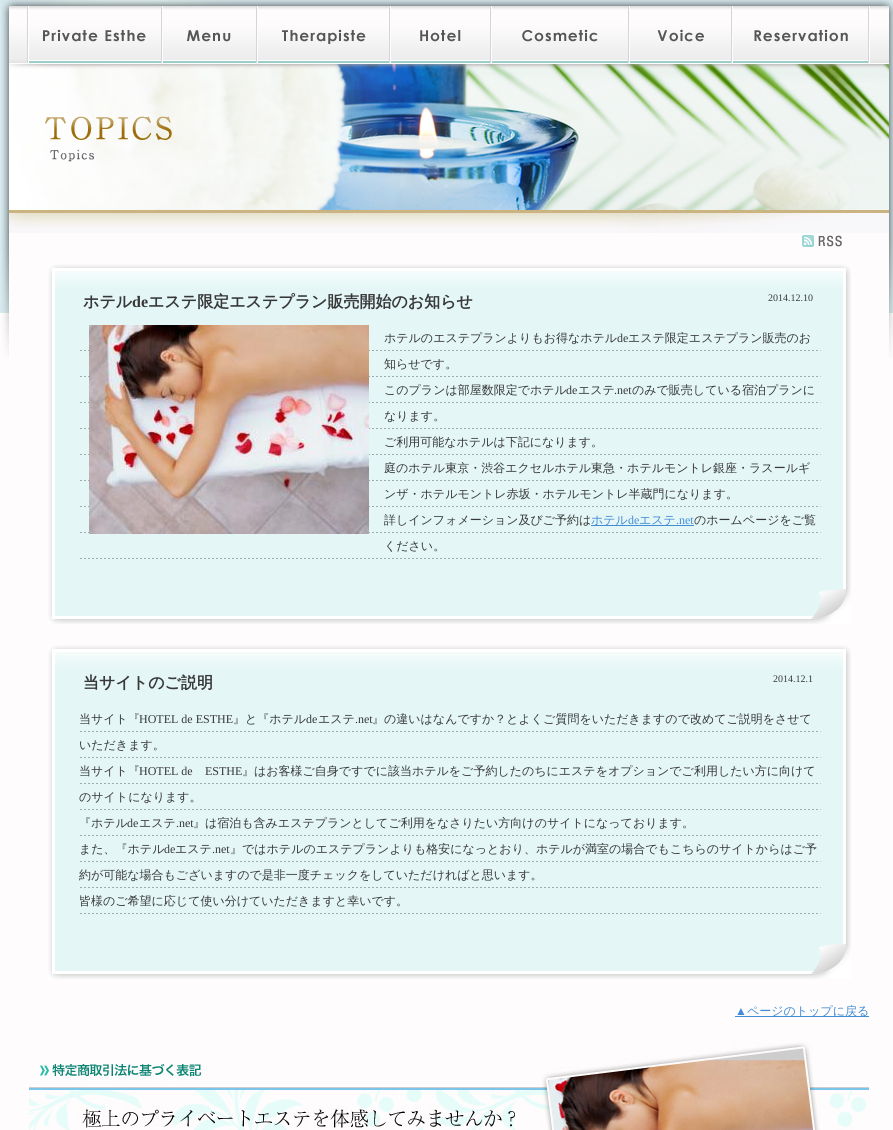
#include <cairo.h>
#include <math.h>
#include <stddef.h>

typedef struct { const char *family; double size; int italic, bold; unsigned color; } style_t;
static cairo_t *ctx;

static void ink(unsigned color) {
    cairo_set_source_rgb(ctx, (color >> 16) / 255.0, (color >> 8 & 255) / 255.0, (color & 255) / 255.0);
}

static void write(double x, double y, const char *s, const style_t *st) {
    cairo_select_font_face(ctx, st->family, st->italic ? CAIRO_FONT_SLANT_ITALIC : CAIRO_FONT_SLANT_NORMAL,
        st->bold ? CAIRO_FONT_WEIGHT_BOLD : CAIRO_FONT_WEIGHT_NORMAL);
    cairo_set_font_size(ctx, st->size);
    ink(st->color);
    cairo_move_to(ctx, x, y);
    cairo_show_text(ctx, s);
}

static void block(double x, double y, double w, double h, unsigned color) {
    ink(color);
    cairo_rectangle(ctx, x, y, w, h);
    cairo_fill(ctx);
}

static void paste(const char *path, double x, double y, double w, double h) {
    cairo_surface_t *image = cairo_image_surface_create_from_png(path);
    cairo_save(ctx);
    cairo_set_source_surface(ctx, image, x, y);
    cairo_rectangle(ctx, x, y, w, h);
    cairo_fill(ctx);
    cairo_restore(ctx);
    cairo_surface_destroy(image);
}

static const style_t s1 = {"WenQuanYi Zen Hei", 16, 0, 1, 0x383838};
static const style_t s2 = {"Liberation Serif", 16, 0, 1, 0x383838};
static const style_t s3 = {"Liberation Serif", 10, 0, 0, 0x383838};
static const style_t s4 = {"WenQuanYi Zen Hei Medium", 12, 0, 0, 0x383838};
static const style_t s5 = {"Liberation Serif", 12, 0, 0, 0x383838};
static const style_t s6 = {"WenQuanYi Zen Hei Medium", 12, 0, 0, 0x428cd6};
static const style_t s7 = {"Liberation Serif", 12, 0, 0, 0x428cd6};

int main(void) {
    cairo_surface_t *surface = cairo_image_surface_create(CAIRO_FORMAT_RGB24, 893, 1130);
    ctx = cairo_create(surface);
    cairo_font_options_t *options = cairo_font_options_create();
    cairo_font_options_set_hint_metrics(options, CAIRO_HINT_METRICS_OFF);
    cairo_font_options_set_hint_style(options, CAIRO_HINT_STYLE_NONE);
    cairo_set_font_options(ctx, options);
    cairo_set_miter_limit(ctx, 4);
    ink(0xfefcfc);
    cairo_paint(ctx);
    block(0, 0, 1, 313, 0xd8eaee);
    paste("pic1.png", 1, 0, 892, 358);
    paste("pic2.png", 9, 6, 153, 57);
    paste("pic3.png", 163, 6, 94, 57);
    paste("pic4.png", 258, 6, 132, 57);
    paste("pic5.png", 391, 6, 100, 57);
    paste("pic6.png", 492, 6, 137, 57);
    paste("pic7.png", 630, 6, 102, 57);
    paste("pic8.png", 733, 6, 156, 57);
    paste("pic9.png", 9, 64, 880, 169);
    paste("pic10.png", 802, 235, 40, 12);
    paste("pic11.png", 48, 325, 803, 259);
    paste("pic12.png", 48, 584, 803, 41);
    paste("pic13.png", 48, 264, 803, 61);
    write(83, 307, "ホテル", &s1);
    write(132, 307, "de", &s2);
    write(148, 307, "エステ限定エステプラン販売開始のお知らせ", &s1);
    write(768, 301, "2014.12.10", &s3);
    paste("pic14.png", 89, 325, 280, 209);
    write(384, 342, "ホテルのエステプランよりもお得なホテル", &s4);
    write(617, 342, "de", &s5);
    write(628, 342, "エステ限定エステプラン販売のお", &s4);
    write(384, 368, "知らせです。", &s4);
    write(384, 394, "このプランは部屋数限定でホテル", &s4);
    write(566, 394, "de", &s5);
    write(578, 394, "エステ", &s4);
    write(614, 394, ".net", &s5);
    write(632, 394, "のみで販売している宿泊プランに", &s4);
    write(384, 420, "なります。", &s4);
    write(384, 446, "ご利用可能なホテルは下記になります。", &s4);
    write(384, 472, "庭のホテル東京・渋谷エクセルホテル東急・ホテルモントレ銀座・ラスールギ", &s4);
    write(384, 498, "ンザ・ホテルモントレ赤坂・ホテルモントレ半蔵門になります。", &s4);
    write(384, 524, "詳しインフォメーション及びご予約は", &s4);
    block(591, 525, 103, 1, 0x428cd6);
    write(591, 524, "ホテル", &s6);
    write(628, 524, "de", &s7);
    write(639, 524, "エステ", &s6);
    write(676, 524, ".net", &s7);
    write(694, 524, "のホームページをご覧", &s4);
    write(384, 550, "ください。", &s4);
    paste("pic15.png", 48, 706, 803, 233);
    paste("pic12.png", 48, 939, 803, 41);
    paste("pic13.png", 48, 645, 803, 61);
    write(83, 688, "当サイトのご説明", &s1);
    write(773, 682, "2014.12.1", &s3);
    write(79, 723, "当サイト『", &s4);
    write(139, 723, "HOTEL de ESTHE", &s5);
    write(233, 723, "』と『ホテル", &s4);
    write(306, 723, "de", &s5);
    write(318, 723, "エステ", &s4);
    write(355, 723, ".net", &s5);
    write(372, 723, "』の違いはなんですか？とよくご質問をいただきますので改めてご説明をさせて", &s4);
    write(79, 749, "いただきます。", &s4);
    write(79, 775, "当サイト『", &s4);
    write(139, 775, "HOTEL de", &s5);
    write(205, 775, "ESTHE", &s5);
    write(242, 775, "』はお客様ご自身ですでに該当ホテルをご予約したのちにエステをオプションでご利用したい方に向けて", &s4);
    write(79, 801, "のサイトになります。", &s4);
    write(79, 827, "『ホテル", &s4);
    write(127, 827, "de", &s5);
    write(139, 827, "エステ", &s4);
    write(176, 827, ".net", &s5);
    write(193, 827, "』は宿泊も含みエステプランとしてご利用をなさりたい方向けのサイトになっております。", &s4);
    write(79, 853, "また、『ホテル", &s4);
    write(164, 853, "de", &s5);
    write(175, 853, "エステ", &s4);
    write(212, 853, ".net", &s5);
    write(230, 853, "』ではホテルのエステプランよりも格安になっとおり、ホテルが満室の場合でもこちらのサイトからはご予", &s4);
    write(79, 879, "約が可能な場合もございますので是非一度チェックをしていただければと思います。", &s4);
    write(79, 905, "皆様のご希望に応じて使い分けていただきますと幸いです。", &s4);
    write(735, 1015, "▲", &s7);
    block(735, 1016, 134, 1, 0x428cd6);
    write(747, 1015, "ページのトップに戻る", &s6);
    paste("pic16.png", 29, 1042, 840, 88);
    cairo_surface_write_to_png(surface, "screenshot.png");
    cairo_font_options_destroy(options);
    cairo_destroy(ctx);
    cairo_surface_destroy(surface);
    return 0;
}
